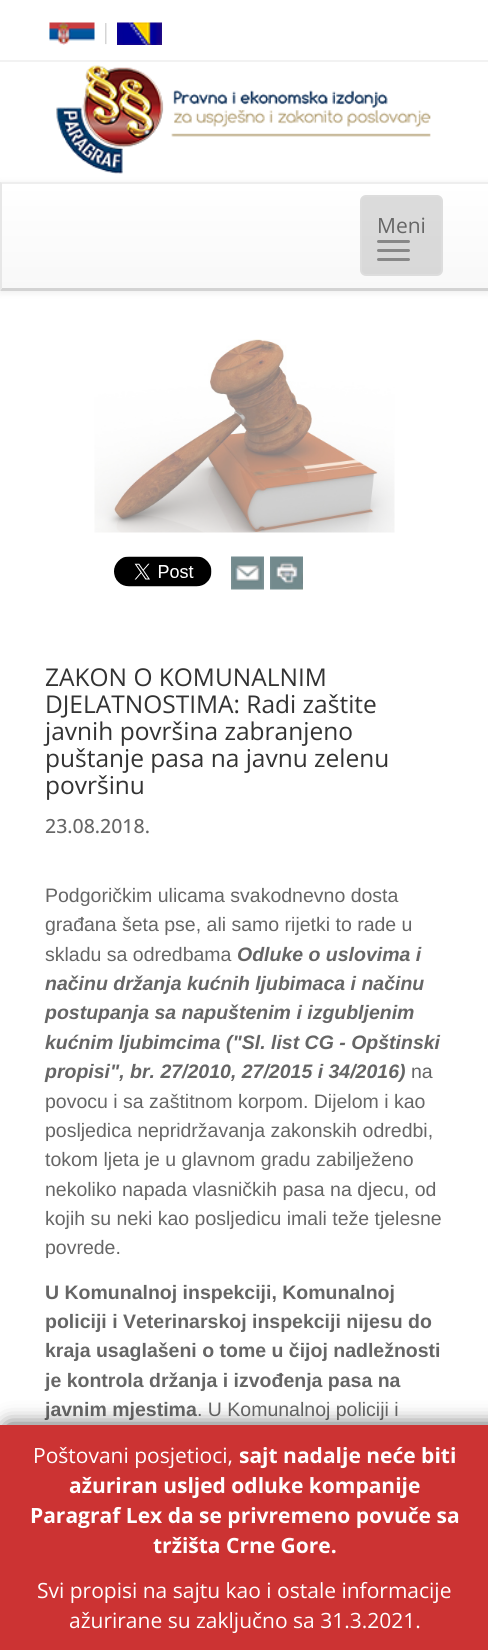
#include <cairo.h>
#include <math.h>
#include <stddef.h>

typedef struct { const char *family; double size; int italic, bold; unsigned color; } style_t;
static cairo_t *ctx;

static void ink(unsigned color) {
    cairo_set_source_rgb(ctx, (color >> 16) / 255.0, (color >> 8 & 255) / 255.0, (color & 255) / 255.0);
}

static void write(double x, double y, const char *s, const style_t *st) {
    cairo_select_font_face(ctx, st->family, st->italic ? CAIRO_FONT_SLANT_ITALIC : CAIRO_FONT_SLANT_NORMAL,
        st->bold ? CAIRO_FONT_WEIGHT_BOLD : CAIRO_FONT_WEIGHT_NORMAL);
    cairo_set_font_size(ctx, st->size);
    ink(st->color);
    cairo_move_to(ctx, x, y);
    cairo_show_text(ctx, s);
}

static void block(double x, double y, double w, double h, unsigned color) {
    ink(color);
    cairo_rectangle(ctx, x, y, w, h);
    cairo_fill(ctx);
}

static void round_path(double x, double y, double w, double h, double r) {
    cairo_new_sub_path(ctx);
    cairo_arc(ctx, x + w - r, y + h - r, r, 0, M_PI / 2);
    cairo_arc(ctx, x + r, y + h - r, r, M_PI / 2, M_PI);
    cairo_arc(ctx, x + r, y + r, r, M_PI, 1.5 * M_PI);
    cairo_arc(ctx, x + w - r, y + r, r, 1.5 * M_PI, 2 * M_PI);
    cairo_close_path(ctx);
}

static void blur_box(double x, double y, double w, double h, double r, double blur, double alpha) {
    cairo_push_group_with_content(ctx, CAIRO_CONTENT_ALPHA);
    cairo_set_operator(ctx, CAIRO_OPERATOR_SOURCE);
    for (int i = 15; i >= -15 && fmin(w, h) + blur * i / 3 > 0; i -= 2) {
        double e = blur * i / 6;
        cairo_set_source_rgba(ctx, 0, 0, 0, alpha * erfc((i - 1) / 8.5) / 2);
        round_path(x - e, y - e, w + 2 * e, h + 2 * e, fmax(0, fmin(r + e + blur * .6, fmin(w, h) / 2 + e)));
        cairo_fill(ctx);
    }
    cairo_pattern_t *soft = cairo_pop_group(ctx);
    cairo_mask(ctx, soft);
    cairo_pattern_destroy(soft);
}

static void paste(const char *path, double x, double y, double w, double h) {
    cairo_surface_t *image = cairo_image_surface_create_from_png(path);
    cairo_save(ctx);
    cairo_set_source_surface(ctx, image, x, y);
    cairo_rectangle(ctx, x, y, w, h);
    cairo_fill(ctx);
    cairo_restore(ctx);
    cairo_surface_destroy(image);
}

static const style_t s1 = {"Open Sans", 21, 0, 0, 0xd3d3d3};
static const style_t s2 = {"Open Sans", 21, 0, 0, 0x666666};
static const style_t s3 = {"Open Sans", 24.5, 0, 0, 0x333333};
static const style_t s4 = {"Open Sans Medium", 19.5, 0, 0, 0x666666};
static const style_t s5 = {"Liberation Sans", 19.5, 0, 0, 0x666666};
static const style_t s6 = {"Liberation Sans", 19.5, 1, 1, 0x666666};
static const style_t s7 = {"Liberation Sans", 19.5, 0, 1, 0x666666};
static const style_t s8 = {"Open Sans", 21, 0, 0, 0xffffff};
static const style_t s9 = {"Open Sans", 21, 0, 1, 0xffffff};

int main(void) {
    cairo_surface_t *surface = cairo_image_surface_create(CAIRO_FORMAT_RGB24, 488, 1650);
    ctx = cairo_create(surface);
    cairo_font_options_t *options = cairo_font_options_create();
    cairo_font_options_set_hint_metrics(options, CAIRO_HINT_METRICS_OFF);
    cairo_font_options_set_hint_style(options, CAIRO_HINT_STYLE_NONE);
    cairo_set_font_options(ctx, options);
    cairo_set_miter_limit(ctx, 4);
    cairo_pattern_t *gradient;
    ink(0xffffff);
    cairo_paint(ctx);
    block(0, 60, 488, 2, 0xf2f2f2);
    paste("pic1.png", 49, 22, 46, 23);
    write(100, 39, "|", &s1);
    paste("pic2.png", 117, 22, 45, 23);
    paste("pic3.png", 56, 65, 375, 109);
    ink(0x000000);
    blur_box(0, 183, 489, 110, 0, 4, 0.07);
    gradient = cairo_pattern_create_linear(245, 183, 245, 288);
    cairo_pattern_add_color_stop_rgba(gradient, 0, 1, 1, 1, 1);
    cairo_pattern_add_color_stop_rgba(gradient, 1, 0.973, 0.973, 0.973, 1);
    cairo_set_source(ctx, gradient);
    cairo_pattern_destroy(gradient);
    cairo_rectangle(ctx, 2, 184, 486, 104);
    cairo_fill(ctx);
    block(0, 182, 488, 2, 0xeeeeee);
    ink(0xd3d3d3);
    cairo_new_path(ctx);
    cairo_move_to(ctx, 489, 291);
    cairo_line_to(ctx, 0, 291);
    cairo_line_to(ctx, 2, 288);
    cairo_line_to(ctx, 488, 288);
    cairo_close_path(ctx);
    cairo_fill(ctx);
    ink(0xe7e7e7);
    cairo_new_path(ctx);
    cairo_move_to(ctx, 0, 291);
    cairo_line_to(ctx, 0, 182);
    cairo_line_to(ctx, 2, 183);
    cairo_line_to(ctx, 2, 288);
    cairo_close_path(ctx);
    cairo_fill(ctx);
    cairo_set_source_rgba(ctx, 0.557, 0.557, 0.557, 0.31);
    round_path(361, 196, 81, 79, 5);
    cairo_fill_preserve(ctx);
    ink(0xdddddd);
    cairo_stroke(ctx);
    write(377, 233, "Meni", &s2);
    ink(0x888888);
    round_path(377, 240, 33, 3, 1.5);
    cairo_fill(ctx);
    round_path(377, 249, 33, 3, 1.5);
    cairo_fill(ctx);
    round_path(377, 258, 33, 3, 1.5);
    cairo_fill(ctx);
    paste("pic4.png", 94, 339, 301, 194);
    paste("pic5.png", 114, 556, 98, 31);
    paste("pic6.png", 231, 556, 33, 34);
    paste("pic7.png", 270, 556, 33, 34);
    write(45, 686, "ZAKON O KOMUNALNIM", &s3);
    write(45, 713, "DJELATNOSTIMA: Radi zaštite", &s3);
    write(45, 740, "javnih površina zabranjeno", &s3);
    write(45, 767, "puštanje pasa na javnu zelenu", &s3);
    write(45, 794, "površinu", &s3);
    write(45, 833, "23.08.2018.", &s4);
    write(45, 902, "Podgoričkim ulicama svakodnevno dosta", &s5);
    write(45, 931, "građana šeta pse, ali samo rijetki to rade u", &s5);
    write(45, 961, "skladu sa odredbama", &s5);
    write(237, 961, "Odluke o uslovima i", &s6);
    write(45, 990, "načinu držanja kućnih ljubimaca i načinu", &s6);
    write(45, 1019, "postupanja sa napuštenim i izgubljenim", &s6);
    write(45, 1049, "kućnim ljubimcima (\"Sl. list CG - Opštinski", &s6);
    write(45, 1078, "propisi\", br. 27/2010, 27/2015 i 34/2016)", &s6);
    write(411, 1078, "na", &s5);
    write(45, 1108, "povocu i sa zaštitnom korpom. Dijelom i kao", &s5);
    write(45, 1137, "posljedica nepridržavanja zakonskih odredbi,", &s5);
    write(45, 1166, "tokom ljeta je u glavnom gradu zabilježeno", &s5);
    write(45, 1196, "nekoliko napada vlasničkih pasa na djecu, od", &s5);
    write(45, 1225, "kojih su neki kao posljedicu imali teže tjelesne", &s5);
    write(45, 1254, "povrede.", &s5);
    write(45, 1299, "U Komunalnoj inspekciji, Komunalnoj", &s7);
    write(45, 1328, "policiji i Veterinarskoj inspekciji nijesu do", &s7);
    write(45, 1357, "kraja usaglašeni o tome u čijoj nadležnosti", &s7);
    write(45, 1387, "je kontrola držanja i izvođenja pasa na", &s7);
    write(45, 1416, "javnim mjestima", &s7);
    write(197, 1416, ". U Komunalnoj policiji i", &s5);
    ink(0x2f2f2f);
    blur_box(8, 1427, 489, 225, 0, 10.5, 1);
    block(0, 1425, 488, 225, 0xcc3333);
    write(33, 1463, "Poštovani posjetioci,", &s8);
    write(239, 1463, "sajt nadalje neće biti", &s9);
    write(69, 1493, "ažuriran usljed odluke kompanije", &s9);
    write(30, 1523, "Paragraf Lex da se privremeno povuče sa", &s9);
    write(153, 1553, "tržišta Crne Gore.", &s9);
    write(37, 1598, "Svi propisi na sajtu kao i ostale informacije", &s8);
    write(69, 1628, "ažurirane su zaključno sa 31.3.2021.", &s8);
    cairo_surface_write_to_png(surface, "screenshot.png");
    cairo_font_options_destroy(options);
    cairo_destroy(ctx);
    cairo_surface_destroy(surface);
    return 0;
}
